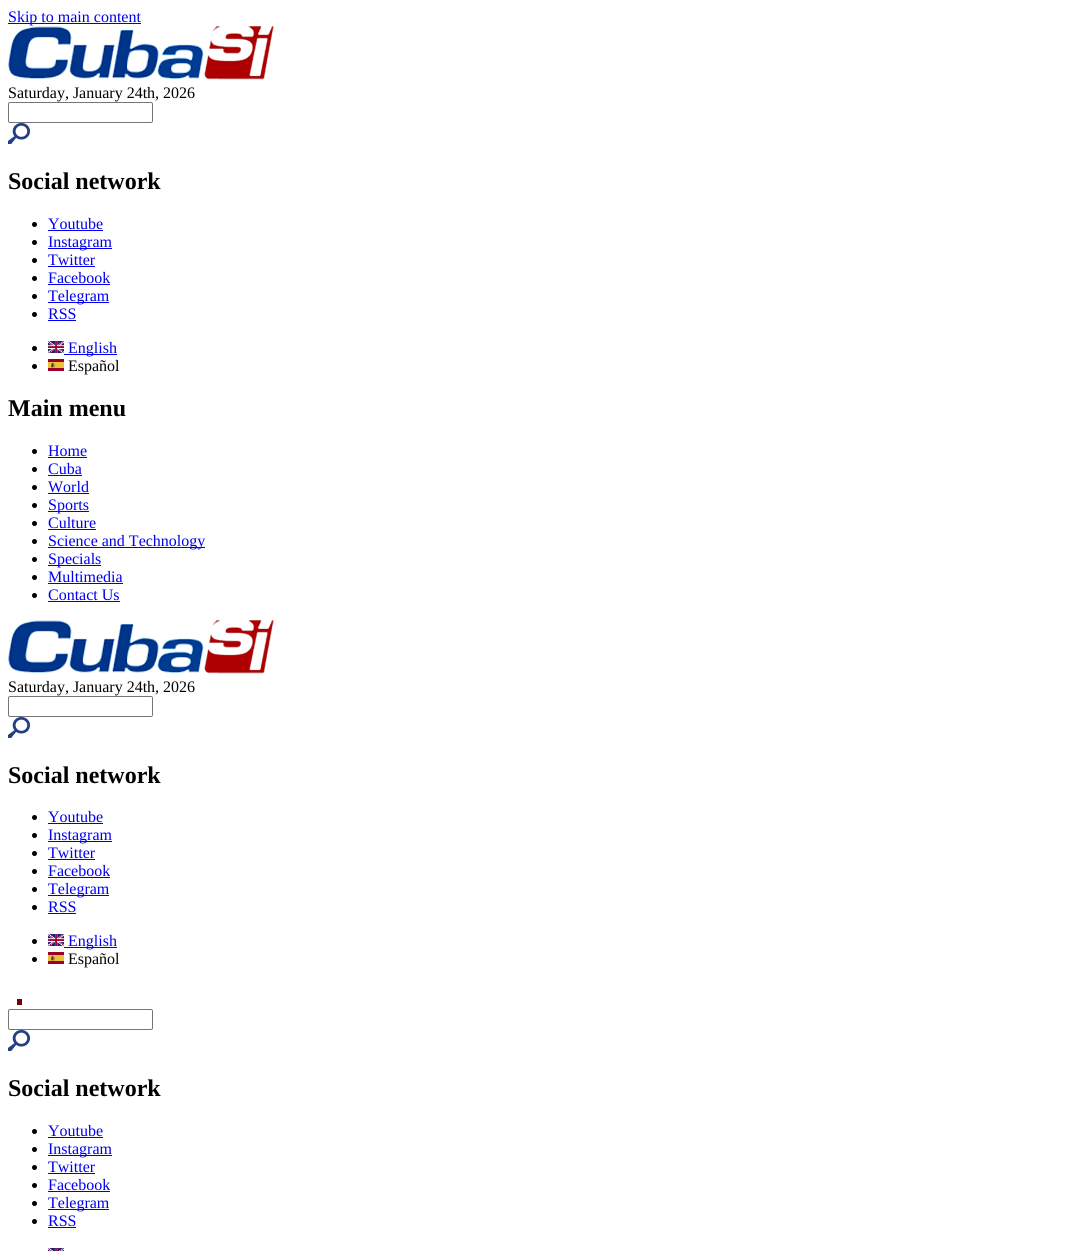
#include <cairo.h>
#include <math.h>
#include <stddef.h>

typedef struct { const char *family; double size; int italic, bold; unsigned color; } style_t;
static cairo_t *ctx;

static void ink(unsigned color) {
    cairo_set_source_rgb(ctx, (color >> 16) / 255.0, (color >> 8 & 255) / 255.0, (color & 255) / 255.0);
}

static void write(double x, double y, const char *s, const style_t *st) {
    cairo_select_font_face(ctx, st->family, st->italic ? CAIRO_FONT_SLANT_ITALIC : CAIRO_FONT_SLANT_NORMAL,
        st->bold ? CAIRO_FONT_WEIGHT_BOLD : CAIRO_FONT_WEIGHT_NORMAL);
    cairo_set_font_size(ctx, st->size);
    ink(st->color);
    cairo_move_to(ctx, x, y);
    cairo_show_text(ctx, s);
}

static void block(double x, double y, double w, double h, unsigned color) {
    ink(color);
    cairo_rectangle(ctx, x, y, w, h);
    cairo_fill(ctx);
}

static void round_path(double x, double y, double w, double h, double r) {
    cairo_new_sub_path(ctx);
    cairo_arc(ctx, x + w - r, y + h - r, r, 0, M_PI / 2);
    cairo_arc(ctx, x + r, y + h - r, r, M_PI / 2, M_PI);
    cairo_arc(ctx, x + r, y + r, r, M_PI, 1.5 * M_PI);
    cairo_arc(ctx, x + w - r, y + r, r, 1.5 * M_PI, 2 * M_PI);
    cairo_close_path(ctx);
}

static void paste(const char *path, double x, double y, double w, double h) {
    cairo_surface_t *image = cairo_image_surface_create_from_png(path);
    cairo_save(ctx);
    cairo_set_source_surface(ctx, image, x, y);
    cairo_rectangle(ctx, x, y, w, h);
    cairo_fill(ctx);
    cairo_restore(ctx);
    cairo_surface_destroy(image);
}

static const style_t s1 = {"Liberation Serif", 16, 0, 0, 0x0000ee};
static const style_t s2 = {"Liberation Serif", 16, 0, 0, 0x000000};
static const style_t s3 = {"Liberation Serif", 24, 0, 1, 0x000000};

int main(void) {
    cairo_surface_t *surface = cairo_image_surface_create(CAIRO_FORMAT_RGB24, 1089, 1251);
    ctx = cairo_create(surface);
    cairo_font_options_t *options = cairo_font_options_create();
    cairo_font_options_set_hint_metrics(options, CAIRO_HINT_METRICS_OFF);
    cairo_font_options_set_hint_style(options, CAIRO_HINT_STYLE_NONE);
    cairo_set_font_options(ctx, options);
    cairo_set_miter_limit(ctx, 4);
    ink(0xffffff);
    cairo_paint(ctx);
    block(8, 23, 133, 1, 0x0000ee);
    write(8, 22, "Skip to main content", &s1);
    paste("pic1.png", 8, 26, 266, 54);
    write(8, 98, "Saturday, January 24th, 2026", &s2);
    round_path(8.5, 102.5, 144, 20, 1.5);
    ink(0x767676);
    cairo_set_line_width(ctx, 1);
    cairo_stroke(ctx);
    paste("pic2.png", 8, 123, 22, 21);
    write(8, 189, "Social network", &s3);
    cairo_new_path(ctx);
    cairo_arc(ctx, 34.5, 224.5, 2.5, 0, 2 * M_PI);
    cairo_fill(ctx);
    write(48, 229, "Youtube", &s1);
    block(48, 230, 55, 1, 0x0000ee);
    ink(0x000000);
    cairo_new_path(ctx);
    cairo_arc(ctx, 34.5, 242.5, 2.5, 0, 2 * M_PI);
    cairo_fill(ctx);
    block(48, 248, 64, 1, 0x0000ee);
    write(48, 247, "Instagram", &s1);
    ink(0x000000);
    cairo_new_path(ctx);
    cairo_arc(ctx, 34.5, 260.5, 2.5, 0, 2 * M_PI);
    cairo_fill(ctx);
    write(48, 265, "Twitter", &s1);
    block(48, 266, 47, 1, 0x0000ee);
    ink(0x000000);
    cairo_new_path(ctx);
    cairo_arc(ctx, 34.5, 278.5, 2.5, 0, 2 * M_PI);
    cairo_fill(ctx);
    write(48, 283, "Facebook", &s1);
    block(48, 284, 62, 1, 0x0000ee);
    ink(0x000000);
    cairo_new_path(ctx);
    cairo_arc(ctx, 34.5, 296.5, 2.5, 0, 2 * M_PI);
    cairo_fill(ctx);
    block(48, 302, 61, 1, 0x0000ee);
    write(48, 301, "Telegram", &s1);
    ink(0x000000);
    cairo_new_path(ctx);
    cairo_arc(ctx, 34.5, 314.5, 2.5, 0, 2 * M_PI);
    cairo_fill(ctx);
    write(48, 319, "RSS", &s1);
    block(48, 320, 28, 1, 0x0000ee);
    ink(0x000000);
    cairo_new_path(ctx);
    cairo_arc(ctx, 34.5, 348.5, 2.5, 0, 2 * M_PI);
    cairo_fill(ctx);
    paste("pic3.png", 48, 341, 16, 12);
    block(64, 354, 53, 1, 0x0000ee);
    write(68, 353, "English", &s1);
    ink(0x000000);
    cairo_new_path(ctx);
    cairo_arc(ctx, 34.5, 366.5, 2.5, 0, 2 * M_PI);
    cairo_fill(ctx);
    paste("pic4.png", 48, 359, 16, 12);
    write(68, 371, "Español", &s2);
    write(8, 416, "Main menu", &s3);
    cairo_new_path(ctx);
    cairo_arc(ctx, 34.5, 451.5, 2.5, 0, 2 * M_PI);
    cairo_fill(ctx);
    write(48, 456, "Home", &s1);
    block(48, 457, 39, 1, 0x0000ee);
    ink(0x000000);
    cairo_new_path(ctx);
    cairo_arc(ctx, 34.5, 469.5, 2.5, 0, 2 * M_PI);
    cairo_fill(ctx);
    write(48, 474, "Cuba", &s1);
    block(48, 475, 34, 1, 0x0000ee);
    ink(0x000000);
    cairo_new_path(ctx);
    cairo_arc(ctx, 34.5, 487.5, 2.5, 0, 2 * M_PI);
    cairo_fill(ctx);
    write(48, 492, "World", &s1);
    block(48, 493, 41, 1, 0x0000ee);
    ink(0x000000);
    cairo_new_path(ctx);
    cairo_arc(ctx, 34.5, 505.5, 2.5, 0, 2 * M_PI);
    cairo_fill(ctx);
    block(48, 511, 41, 1, 0x0000ee);
    write(48, 510, "Sports", &s1);
    ink(0x000000);
    cairo_new_path(ctx);
    cairo_arc(ctx, 34.5, 523.5, 2.5, 0, 2 * M_PI);
    cairo_fill(ctx);
    write(48, 528, "Culture", &s1);
    block(48, 529, 48, 1, 0x0000ee);
    ink(0x000000);
    cairo_new_path(ctx);
    cairo_arc(ctx, 34.5, 541.5, 2.5, 0, 2 * M_PI);
    cairo_fill(ctx);
    block(48, 547, 157, 1, 0x0000ee);
    write(48, 546, "Science and Technology", &s1);
    ink(0x000000);
    cairo_new_path(ctx);
    cairo_arc(ctx, 34.5, 559.5, 2.5, 0, 2 * M_PI);
    cairo_fill(ctx);
    block(48, 565, 53, 1, 0x0000ee);
    write(48, 564, "Specials", &s1);
    ink(0x000000);
    cairo_new_path(ctx);
    cairo_arc(ctx, 34.5, 577.5, 2.5, 0, 2 * M_PI);
    cairo_fill(ctx);
    write(48, 582, "Multimedia", &s1);
    block(48, 583, 75, 1, 0x0000ee);
    ink(0x000000);
    cairo_new_path(ctx);
    cairo_arc(ctx, 34.5, 595.5, 2.5, 0, 2 * M_PI);
    cairo_fill(ctx);
    write(48, 600, "Contact Us", &s1);
    block(48, 601, 72, 1, 0x0000ee);
    paste("pic1.png", 8, 620, 266, 54);
    write(8, 692, "Saturday, January 24th, 2026", &s2);
    round_path(8.5, 696.5, 144, 20, 1.5);
    ink(0x767676);
    cairo_stroke(ctx);
    paste("pic2.png", 8, 717, 22, 21);
    write(8, 783, "Social network", &s3);
    cairo_new_path(ctx);
    cairo_arc(ctx, 34.5, 817.5, 2.5, 0, 2 * M_PI);
    cairo_fill(ctx);
    write(48, 822, "Youtube", &s1);
    block(48, 823, 55, 1, 0x0000ee);
    ink(0x000000);
    cairo_new_path(ctx);
    cairo_arc(ctx, 34.5, 835.5, 2.5, 0, 2 * M_PI);
    cairo_fill(ctx);
    block(48, 841, 64, 1, 0x0000ee);
    write(48, 840, "Instagram", &s1);
    ink(0x000000);
    cairo_new_path(ctx);
    cairo_arc(ctx, 34.5, 853.5, 2.5, 0, 2 * M_PI);
    cairo_fill(ctx);
    write(48, 858, "Twitter", &s1);
    block(48, 859, 47, 1, 0x0000ee);
    ink(0x000000);
    cairo_new_path(ctx);
    cairo_arc(ctx, 34.5, 871.5, 2.5, 0, 2 * M_PI);
    cairo_fill(ctx);
    write(48, 876, "Facebook", &s1);
    block(48, 877, 62, 1, 0x0000ee);
    ink(0x000000);
    cairo_new_path(ctx);
    cairo_arc(ctx, 34.5, 889.5, 2.5, 0, 2 * M_PI);
    cairo_fill(ctx);
    block(48, 895, 61, 1, 0x0000ee);
    write(48, 894, "Telegram", &s1);
    ink(0x000000);
    cairo_new_path(ctx);
    cairo_arc(ctx, 34.5, 907.5, 2.5, 0, 2 * M_PI);
    cairo_fill(ctx);
    write(48, 912, "RSS", &s1);
    block(48, 913, 28, 1, 0x0000ee);
    ink(0x000000);
    cairo_new_path(ctx);
    cairo_arc(ctx, 34.5, 941.5, 2.5, 0, 2 * M_PI);
    cairo_fill(ctx);
    paste("pic3.png", 48, 934, 16, 12);
    block(64, 947, 53, 1, 0x0000ee);
    write(68, 946, "English", &s1);
    ink(0x000000);
    cairo_new_path(ctx);
    cairo_arc(ctx, 34.5, 959.5, 2.5, 0, 2 * M_PI);
    cairo_fill(ctx);
    paste("pic4.png", 48, 952, 16, 12);
    write(68, 964, "Español", &s2);
    block(17, 999, 5, 6, 0x720000);
    round_path(8.5, 1009.5, 144, 20, 1.5);
    ink(0x767676);
    cairo_stroke(ctx);
    paste("pic2.png", 8, 1030, 22, 21);
    write(8, 1096, "Social network", &s3);
    cairo_new_path(ctx);
    cairo_arc(ctx, 34.5, 1131.5, 2.5, 0, 2 * M_PI);
    cairo_fill(ctx);
    write(48, 1136, "Youtube", &s1);
    block(48, 1137, 55, 1, 0x0000ee);
    ink(0x000000);
    cairo_new_path(ctx);
    cairo_arc(ctx, 34.5, 1149.5, 2.5, 0, 2 * M_PI);
    cairo_fill(ctx);
    block(48, 1155, 64, 1, 0x0000ee);
    write(48, 1154, "Instagram", &s1);
    ink(0x000000);
    cairo_new_path(ctx);
    cairo_arc(ctx, 34.5, 1167.5, 2.5, 0, 2 * M_PI);
    cairo_fill(ctx);
    write(48, 1172, "Twitter", &s1);
    block(48, 1173, 47, 1, 0x0000ee);
    ink(0x000000);
    cairo_new_path(ctx);
    cairo_arc(ctx, 34.5, 1185.5, 2.5, 0, 2 * M_PI);
    cairo_fill(ctx);
    write(48, 1190, "Facebook", &s1);
    block(48, 1191, 62, 1, 0x0000ee);
    ink(0x000000);
    cairo_new_path(ctx);
    cairo_arc(ctx, 34.5, 1203.5, 2.5, 0, 2 * M_PI);
    cairo_fill(ctx);
    block(48, 1209, 61, 1, 0x0000ee);
    write(48, 1208, "Telegram", &s1);
    ink(0x000000);
    cairo_new_path(ctx);
    cairo_arc(ctx, 34.5, 1221.5, 2.5, 0, 2 * M_PI);
    cairo_fill(ctx);
    write(48, 1226, "RSS", &s1);
    block(48, 1227, 28, 1, 0x0000ee);
    paste("pic5.png", 48, 1248, 16, 3);
    cairo_surface_write_to_png(surface, "screenshot.png");
    cairo_font_options_destroy(options);
    cairo_destroy(ctx);
    cairo_surface_destroy(surface);
    return 0;
}
